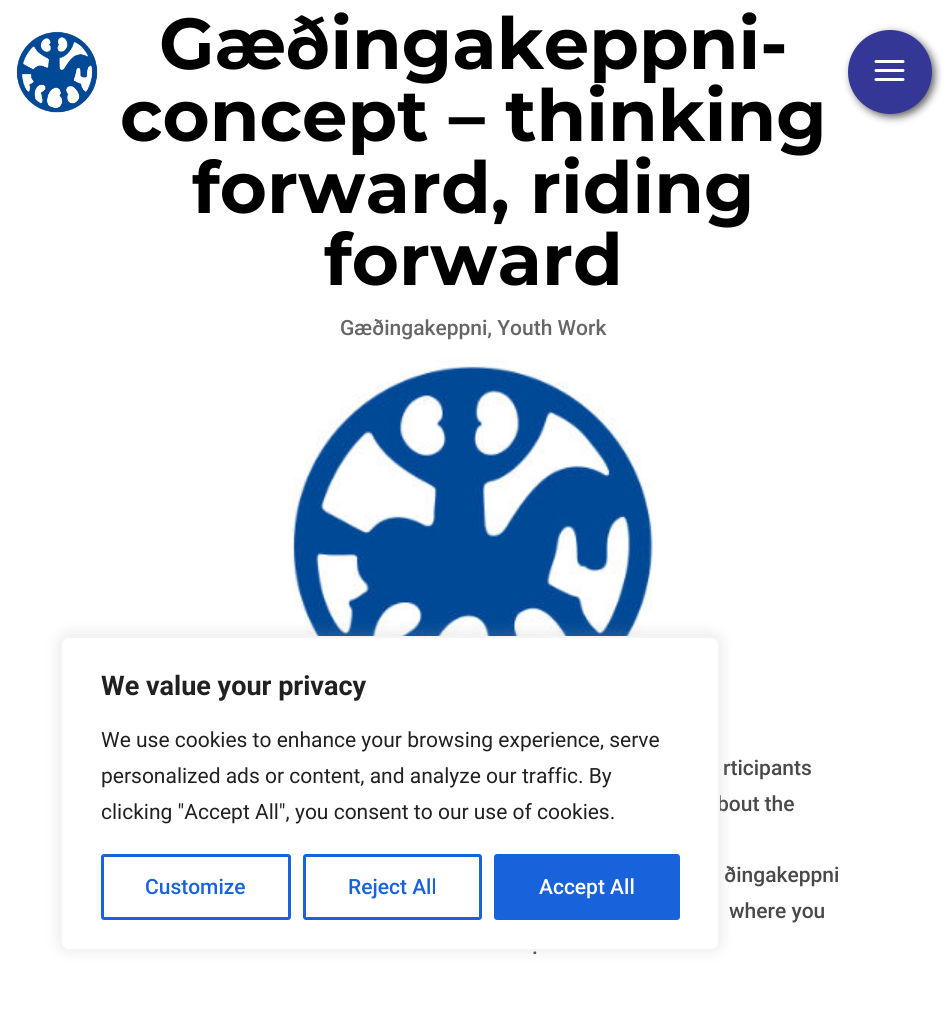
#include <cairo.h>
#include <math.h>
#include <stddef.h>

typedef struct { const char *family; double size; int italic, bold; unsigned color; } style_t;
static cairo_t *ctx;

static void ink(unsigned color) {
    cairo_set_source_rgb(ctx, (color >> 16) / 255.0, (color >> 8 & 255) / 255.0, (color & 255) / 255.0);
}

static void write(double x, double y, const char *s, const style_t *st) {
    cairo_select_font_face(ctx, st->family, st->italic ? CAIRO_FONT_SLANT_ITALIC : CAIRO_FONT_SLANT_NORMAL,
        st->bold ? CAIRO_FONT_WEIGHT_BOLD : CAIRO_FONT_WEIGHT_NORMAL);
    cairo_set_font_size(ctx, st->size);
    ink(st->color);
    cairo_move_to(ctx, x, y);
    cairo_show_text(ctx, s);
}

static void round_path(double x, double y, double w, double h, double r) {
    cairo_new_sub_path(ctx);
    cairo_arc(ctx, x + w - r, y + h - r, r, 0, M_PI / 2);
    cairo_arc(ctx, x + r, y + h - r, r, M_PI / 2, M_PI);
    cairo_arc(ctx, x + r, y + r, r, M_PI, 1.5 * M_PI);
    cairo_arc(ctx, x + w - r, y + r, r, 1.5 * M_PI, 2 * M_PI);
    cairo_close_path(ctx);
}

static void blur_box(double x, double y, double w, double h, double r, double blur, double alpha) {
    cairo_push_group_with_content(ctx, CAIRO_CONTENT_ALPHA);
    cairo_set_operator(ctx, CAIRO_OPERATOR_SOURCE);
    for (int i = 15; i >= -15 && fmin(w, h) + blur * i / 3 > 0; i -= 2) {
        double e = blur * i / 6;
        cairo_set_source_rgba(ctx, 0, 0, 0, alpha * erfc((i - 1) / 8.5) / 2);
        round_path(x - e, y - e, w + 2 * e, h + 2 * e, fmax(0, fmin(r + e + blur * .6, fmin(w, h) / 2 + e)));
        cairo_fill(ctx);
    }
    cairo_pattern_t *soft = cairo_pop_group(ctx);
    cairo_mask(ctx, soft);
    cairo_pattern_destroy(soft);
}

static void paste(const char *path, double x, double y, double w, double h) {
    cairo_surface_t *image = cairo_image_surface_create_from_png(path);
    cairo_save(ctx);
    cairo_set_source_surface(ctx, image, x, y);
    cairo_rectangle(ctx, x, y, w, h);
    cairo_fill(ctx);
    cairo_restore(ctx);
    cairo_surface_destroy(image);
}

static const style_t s1 = {"Montserrat", 72, 0, 1, 0x000000};
static const style_t s2 = {"Roboto Medium", 21, 0, 0, 0x666666};
static const style_t s3 = {"Roboto Medium", 21, 0, 0, 0x494949};
static const style_t s4 = {"Roboto", 27, 0, 1, 0x212121};
static const style_t s5 = {"Roboto", 21, 0, 0, 0x212121};
static const style_t s6 = {"Roboto Medium", 21, 0, 0, 0x1863dc};
static const style_t s7 = {"Roboto Medium", 21, 0, 0, 0xffffff};

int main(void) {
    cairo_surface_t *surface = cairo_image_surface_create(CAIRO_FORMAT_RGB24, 946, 1011);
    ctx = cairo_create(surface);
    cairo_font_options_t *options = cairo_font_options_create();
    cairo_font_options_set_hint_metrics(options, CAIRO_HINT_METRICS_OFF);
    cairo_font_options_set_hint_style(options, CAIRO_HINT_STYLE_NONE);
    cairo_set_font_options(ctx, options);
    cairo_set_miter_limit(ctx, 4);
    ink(0xffffff);
    cairo_paint(ctx);
    write(159, 69, "Gæðingakeppni-", &s1);
    write(120, 141, "concept – thinking", &s1);
    write(192, 213, "forward, riding", &s1);
    write(324, 285, "forward", &s1);
    write(340, 335, "Gæðingakeppni, Youth Work", &s2);
    paste("pic1.png", 292, 358, 361, 278);
    write(723, 775, "rticipants", &s3);
    write(717, 811, "bout the", &s3);
    write(724, 882, "ðingakeppni", &s3);
    write(729, 918, "where you", &s3);
    write(532, 954, ".", &s3);
    paste("pic2.png", 16, 31, 82, 82);
    ink(0x000000);
    blur_box(851, 33, 84, 84, 42, 4, 0.6);
    ink(0x353797);
    cairo_arc(ctx, 890, 72, 42, 0, 2 * M_PI);
    cairo_fill(ctx);
    paste("pic3.png", 874, 60, 31, 21);
    ink(0xacabab);
    blur_box(60, 635, 660, 315, 9, 7.5, 0.3);
    ink(0xffffff);
    round_path(61, 637, 658, 313, 8);
    cairo_fill_preserve(ctx);
    ink(0xf4f4f4);
    cairo_stroke(ctx);
    write(101, 695, "We value your privacy", &s4);
    write(101, 747, "We use cookies to enhance your browsing experience, serve", &s5);
    write(101, 783, "personalized ads or content, and analyze our traffic. By", &s5);
    write(101, 819, "clicking \"Accept All\", you consent to our use of cookies.", &s5);
    round_path(102.5, 855.5, 187, 63, 1.5);
    ink(0x1863dc);
    cairo_set_line_width(ctx, 3);
    cairo_stroke(ctx);
    write(145, 894, "Customize", &s6);
    round_path(304.5, 855.5, 176, 63, 1.5);
    cairo_stroke(ctx);
    write(348, 894, "Reject All", &s6);
    round_path(495.5, 855.5, 183, 63, 1.5);
    cairo_fill_preserve(ctx);
    cairo_stroke(ctx);
    write(539, 894, "Accept All", &s7);
    cairo_surface_write_to_png(surface, "screenshot.png");
    cairo_font_options_destroy(options);
    cairo_destroy(ctx);
    cairo_surface_destroy(surface);
    return 0;
}
